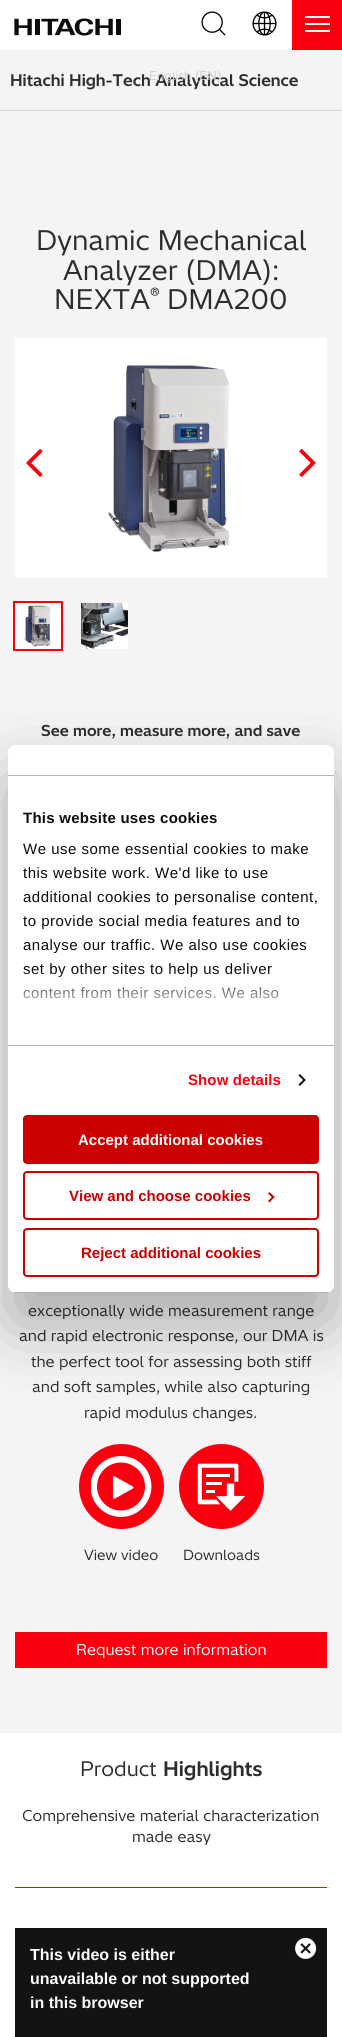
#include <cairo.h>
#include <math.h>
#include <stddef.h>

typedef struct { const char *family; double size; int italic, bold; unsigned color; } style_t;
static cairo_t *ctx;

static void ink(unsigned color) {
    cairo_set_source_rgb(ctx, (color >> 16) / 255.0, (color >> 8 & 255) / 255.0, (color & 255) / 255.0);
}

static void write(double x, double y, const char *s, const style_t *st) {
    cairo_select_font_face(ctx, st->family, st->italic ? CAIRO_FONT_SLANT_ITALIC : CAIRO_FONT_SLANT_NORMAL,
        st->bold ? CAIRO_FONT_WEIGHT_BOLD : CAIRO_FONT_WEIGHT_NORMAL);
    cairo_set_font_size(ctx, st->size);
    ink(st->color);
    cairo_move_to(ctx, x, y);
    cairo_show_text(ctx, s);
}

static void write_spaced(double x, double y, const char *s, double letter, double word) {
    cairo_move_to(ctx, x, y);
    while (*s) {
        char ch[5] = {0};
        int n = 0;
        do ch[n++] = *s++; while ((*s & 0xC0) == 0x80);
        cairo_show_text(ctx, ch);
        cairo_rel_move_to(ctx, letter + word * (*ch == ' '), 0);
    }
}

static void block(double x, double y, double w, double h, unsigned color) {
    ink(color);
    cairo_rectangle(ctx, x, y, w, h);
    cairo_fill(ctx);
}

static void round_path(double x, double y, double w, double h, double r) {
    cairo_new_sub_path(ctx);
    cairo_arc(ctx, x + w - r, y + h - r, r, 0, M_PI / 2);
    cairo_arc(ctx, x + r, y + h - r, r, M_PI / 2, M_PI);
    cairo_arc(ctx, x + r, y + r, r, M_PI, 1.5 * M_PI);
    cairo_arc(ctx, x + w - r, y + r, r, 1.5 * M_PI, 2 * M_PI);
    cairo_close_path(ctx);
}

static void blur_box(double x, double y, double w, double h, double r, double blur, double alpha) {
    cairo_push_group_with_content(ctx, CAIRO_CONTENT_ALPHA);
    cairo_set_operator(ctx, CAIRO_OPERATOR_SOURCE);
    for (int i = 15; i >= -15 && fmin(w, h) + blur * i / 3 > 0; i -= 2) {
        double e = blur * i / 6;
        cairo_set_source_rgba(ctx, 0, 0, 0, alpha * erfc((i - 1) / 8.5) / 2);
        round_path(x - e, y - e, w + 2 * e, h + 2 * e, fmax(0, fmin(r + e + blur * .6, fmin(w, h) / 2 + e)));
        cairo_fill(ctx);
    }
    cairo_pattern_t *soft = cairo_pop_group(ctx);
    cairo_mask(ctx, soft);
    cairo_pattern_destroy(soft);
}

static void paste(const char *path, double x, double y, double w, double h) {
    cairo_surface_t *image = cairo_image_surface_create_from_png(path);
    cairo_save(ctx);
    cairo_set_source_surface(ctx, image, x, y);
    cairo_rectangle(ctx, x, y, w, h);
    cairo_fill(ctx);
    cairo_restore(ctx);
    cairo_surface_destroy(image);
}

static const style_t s1 = {"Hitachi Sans", 16, 0, 1, 0x2d2d2d};
static const style_t s2 = {"Hitachi Sans", 12, 0, 0, 0xcdcdcd};
static const style_t s3 = {"Hitachi Sans", 27, 0, 0, 0x2d2d2d};
static const style_t s4 = {"Hitachi Sans", 18, 0, 0, 0x2d2d2d};
static const style_t s5 = {"Hitachi Sans", 15, 0, 1, 0x2d2d2d};
static const style_t s6 = {"Hitachi Sans", 15, 0, 0, 0x2d2d2d};
static const style_t s7 = {"Hitachi Sans", 14, 0, 0, 0x2d2d2d};
static const style_t s8 = {"Hitachi Sans", 15, 0, 0, 0xffffff};
static const style_t s9 = {"Liberation Sans", 15, 0, 1, 0xffffff};
static const style_t s10 = {"Liberation Sans", 15, 0, 1, 0xcc0000};
static const style_t s11 = {"Hitachi Sans", 20, 0, 0, 0x2d2d2d};
static const style_t s12 = {"Hitachi Sans", 20, 0, 1, 0x2d2d2d};
static const style_t s13 = {"Liberation Sans", 16, 0, 1, 0xffffff};

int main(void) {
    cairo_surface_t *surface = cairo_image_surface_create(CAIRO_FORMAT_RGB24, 342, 2037);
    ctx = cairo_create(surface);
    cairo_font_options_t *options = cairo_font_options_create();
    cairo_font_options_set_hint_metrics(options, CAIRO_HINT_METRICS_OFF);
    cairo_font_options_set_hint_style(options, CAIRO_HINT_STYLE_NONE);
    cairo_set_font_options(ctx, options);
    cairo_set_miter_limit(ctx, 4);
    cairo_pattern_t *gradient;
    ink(0xffffff);
    cairo_paint(ctx);
    block(0, 110, 342, 1, 0xd9d9d9);
    paste("pic1.png", 14, 18, 107, 18);
    block(292, 0, 50, 50, 0xfa000f);
    block(305, 16, 25, 2, 0xffffff);
    block(305, 23, 25, 2, 0xffffff);
    block(305, 30, 25, 2, 0xffffff);
    paste("pic2.png", 201, 11, 25, 25);
    paste("pic3.png", 252, 11, 25, 25);
    block(0, 50, 342, 60, 0xf4f4f4);
    write(10, 86, "Hitachi High-Tech Analytical Science", &s1);
    write(149, 80, "English (EN)", &s2);
    block(0, 111, 342, 1622, 0xf4f4f4);
    write(36, 250, "Dynamic Mechanical", &s3);
    write(63, 280, "Analyzer (DMA):", &s3);
    write(54, 309, "NEXTA", &s3);
    write(150, 301, "®", &s4);
    write(167, 309, "DMA200", &s3);
    block(15, 338, 312, 240, 0xffffff);
    paste("pic4.png", 108, 365, 122, 187);
    paste("pic5.png", 26, 449, 17, 28);
    paste("pic6.png", 299, 449, 17, 28);
    block(15, 603, 46, 46, 0xffffff);
    paste("pic7.png", 24, 605, 27, 42);
    cairo_rectangle(ctx, 14, 602, 48, 48);
    ink(0xfa000f);
    cairo_stroke(ctx);
    block(81, 603, 47, 46, 0xffffff);
    paste("pic8.png", 81, 603, 47, 46);
    write(41, 736, "See more, measure more, and save", &s5);
    write(28, 1316, "exceptionally wide measurement range", &s6);
    write(19, 1341, "and rapid electronic response, our DMA is", &s6);
    write(31, 1367, "the perfect tool for assessing both stiff", &s6);
    write(32, 1392, "and soft samples, while also capturing", &s6);
    write(84, 1418, "rapid modulus changes.", &s6);
    ink(0xfa000f);
    cairo_new_path(ctx);
    cairo_arc(ctx, 121.5, 1486.5, 42.5, 0, 2 * M_PI);
    cairo_fill(ctx);
    paste("pic9.png", 91, 1456, 61, 61);
    write(84, 1560, "View video", &s7);
    ink(0xfa000f);
    cairo_new_path(ctx);
    cairo_arc(ctx, 221.5, 1486.5, 42.5, 0, 2 * M_PI);
    cairo_fill(ctx);
    paste("pic10.png", 197, 1463, 48, 48);
    write(183, 1560, "Downloads", &s7);
    block(15, 1632, 312, 36, 0xfa000f);
    write(76, 1655, "Request more information", &s8);
    ink(0x000000);
    blur_box(8, 777, 326, 548, 8, 34, 0.3);
    ink(0xffffff);
    round_path(8, 745, 326, 548, 8);
    cairo_fill(ctx);
    block(8, 775, 326, 1, 0xb3b3b3);
    block(8, 1045, 326, 1, 0xb3b3b3);
    cairo_select_font_face(ctx, "Liberation Sans", CAIRO_FONT_SLANT_NORMAL, CAIRO_FONT_WEIGHT_BOLD);
    ink(0x0c0c0c);
    write_spaced(23, 823, "This website uses cookies", 0.25, 0);
    cairo_select_font_face(ctx, "Liberation Sans", CAIRO_FONT_SLANT_NORMAL, CAIRO_FONT_WEIGHT_NORMAL);
    write_spaced(23, 854, "We use some essential cookies to make", 0.5, 0);
    write_spaced(23, 878, "this website work. We'd like to use", 0.5, 0);
    write_spaced(23, 902, "additional cookies to personalise content,", 0.5, 0);
    write_spaced(23, 926, "to provide social media features and to", 0.5, 0);
    write_spaced(23, 950, "analyse our traffic. We also use cookies", 0.5, 0);
    write_spaced(23, 974, "set by other sites to help us deliver", 0.5, 0);
    write_spaced(23, 998, "content from their services. We also", 0.5, 0);
    gradient = cairo_pattern_create_linear(165, 1045, 165, 970);
    cairo_pattern_add_color_stop_rgba(gradient, 0, 1, 1, 1, 1);
    cairo_pattern_add_color_stop_rgba(gradient, 0.5, 1, 1, 1, 0.8);
    cairo_pattern_add_color_stop_rgba(gradient, 1, 1, 1, 1, 0);
    cairo_set_source(ctx, gradient);
    cairo_pattern_destroy(gradient);
    cairo_rectangle(ctx, 23, 971, 256, 28);
    cairo_fill(ctx);
    cairo_select_font_face(ctx, "Liberation Sans", CAIRO_FONT_SLANT_NORMAL, CAIRO_FONT_WEIGHT_BOLD);
    ink(0xfa000f);
    write_spaced(188, 1085, "Show details", 0.1, 0);
    ink(0x0c0c0c);
    cairo_new_path(ctx);
    cairo_move_to(ctx, 300, 1074);
    cairo_line_to(ctx, 305.5, 1080);
    cairo_line_to(ctx, 304.5, 1081.5);
    cairo_line_to(ctx, 298.5, 1075.5);
    cairo_close_path(ctx);
    cairo_fill(ctx);
    cairo_new_path(ctx);
    cairo_move_to(ctx, 304.5, 1078.5);
    cairo_line_to(ctx, 305.5, 1080);
    cairo_line_to(ctx, 300, 1086);
    cairo_line_to(ctx, 298.5, 1084.5);
    cairo_close_path(ctx);
    cairo_fill(ctx);
    cairo_save(ctx);
    round_path(8, 745, 326, 548, 8);
    cairo_clip(ctx);
    block(8, 1292, 326, 1, 0xb3b3b3);
    cairo_restore(ctx);
    ink(0xcc0000);
    round_path(24, 1116, 294, 47, 3);
    cairo_fill_preserve(ctx);
    cairo_stroke(ctx);
    write(78, 1145, "Accept additional cookies", &s9);
    round_path(24, 1172, 294, 47, 3);
    ink(0xcc0000);
    cairo_stroke(ctx);
    write(69, 1201, "View and choose cookies", &s10);
    cairo_new_path(ctx);
    cairo_move_to(ctx, 269.5, 1192);
    cairo_line_to(ctx, 274.5, 1197);
    cairo_line_to(ctx, 273, 1198.5);
    cairo_line_to(ctx, 268, 1193.5);
    cairo_close_path(ctx);
    cairo_fill(ctx);
    cairo_new_path(ctx);
    cairo_move_to(ctx, 273, 1196);
    cairo_line_to(ctx, 274.5, 1197);
    cairo_line_to(ctx, 269.5, 1202.5);
    cairo_line_to(ctx, 268, 1201);
    cairo_close_path(ctx);
    cairo_fill(ctx);
    round_path(24, 1229, 294, 47, 3);
    cairo_stroke(ctx);
    write(81, 1258, "Reject additional cookies", &s10);
    write(80, 1776, "Product", &s11);
    write(163, 1776, "Highlights", &s12);
    write(22, 1821, "Comprehensive material characterization", &s6);
    write(132, 1842, "made easy", &s6);
    block(15, 1887, 312, 1, 0xfa000f);
    block(15, 1928, 312, 109, 0x131313);
    write(30, 1960, "This video is either", &s13);
    write(30, 1984, "unavailable or not supported", &s13);
    write(30, 2008, "in this browser", &s13);
    paste("pic11.png", 295, 1937, 22, 22);
    cairo_surface_write_to_png(surface, "screenshot.png");
    cairo_font_options_destroy(options);
    cairo_destroy(ctx);
    cairo_surface_destroy(surface);
    return 0;
}
